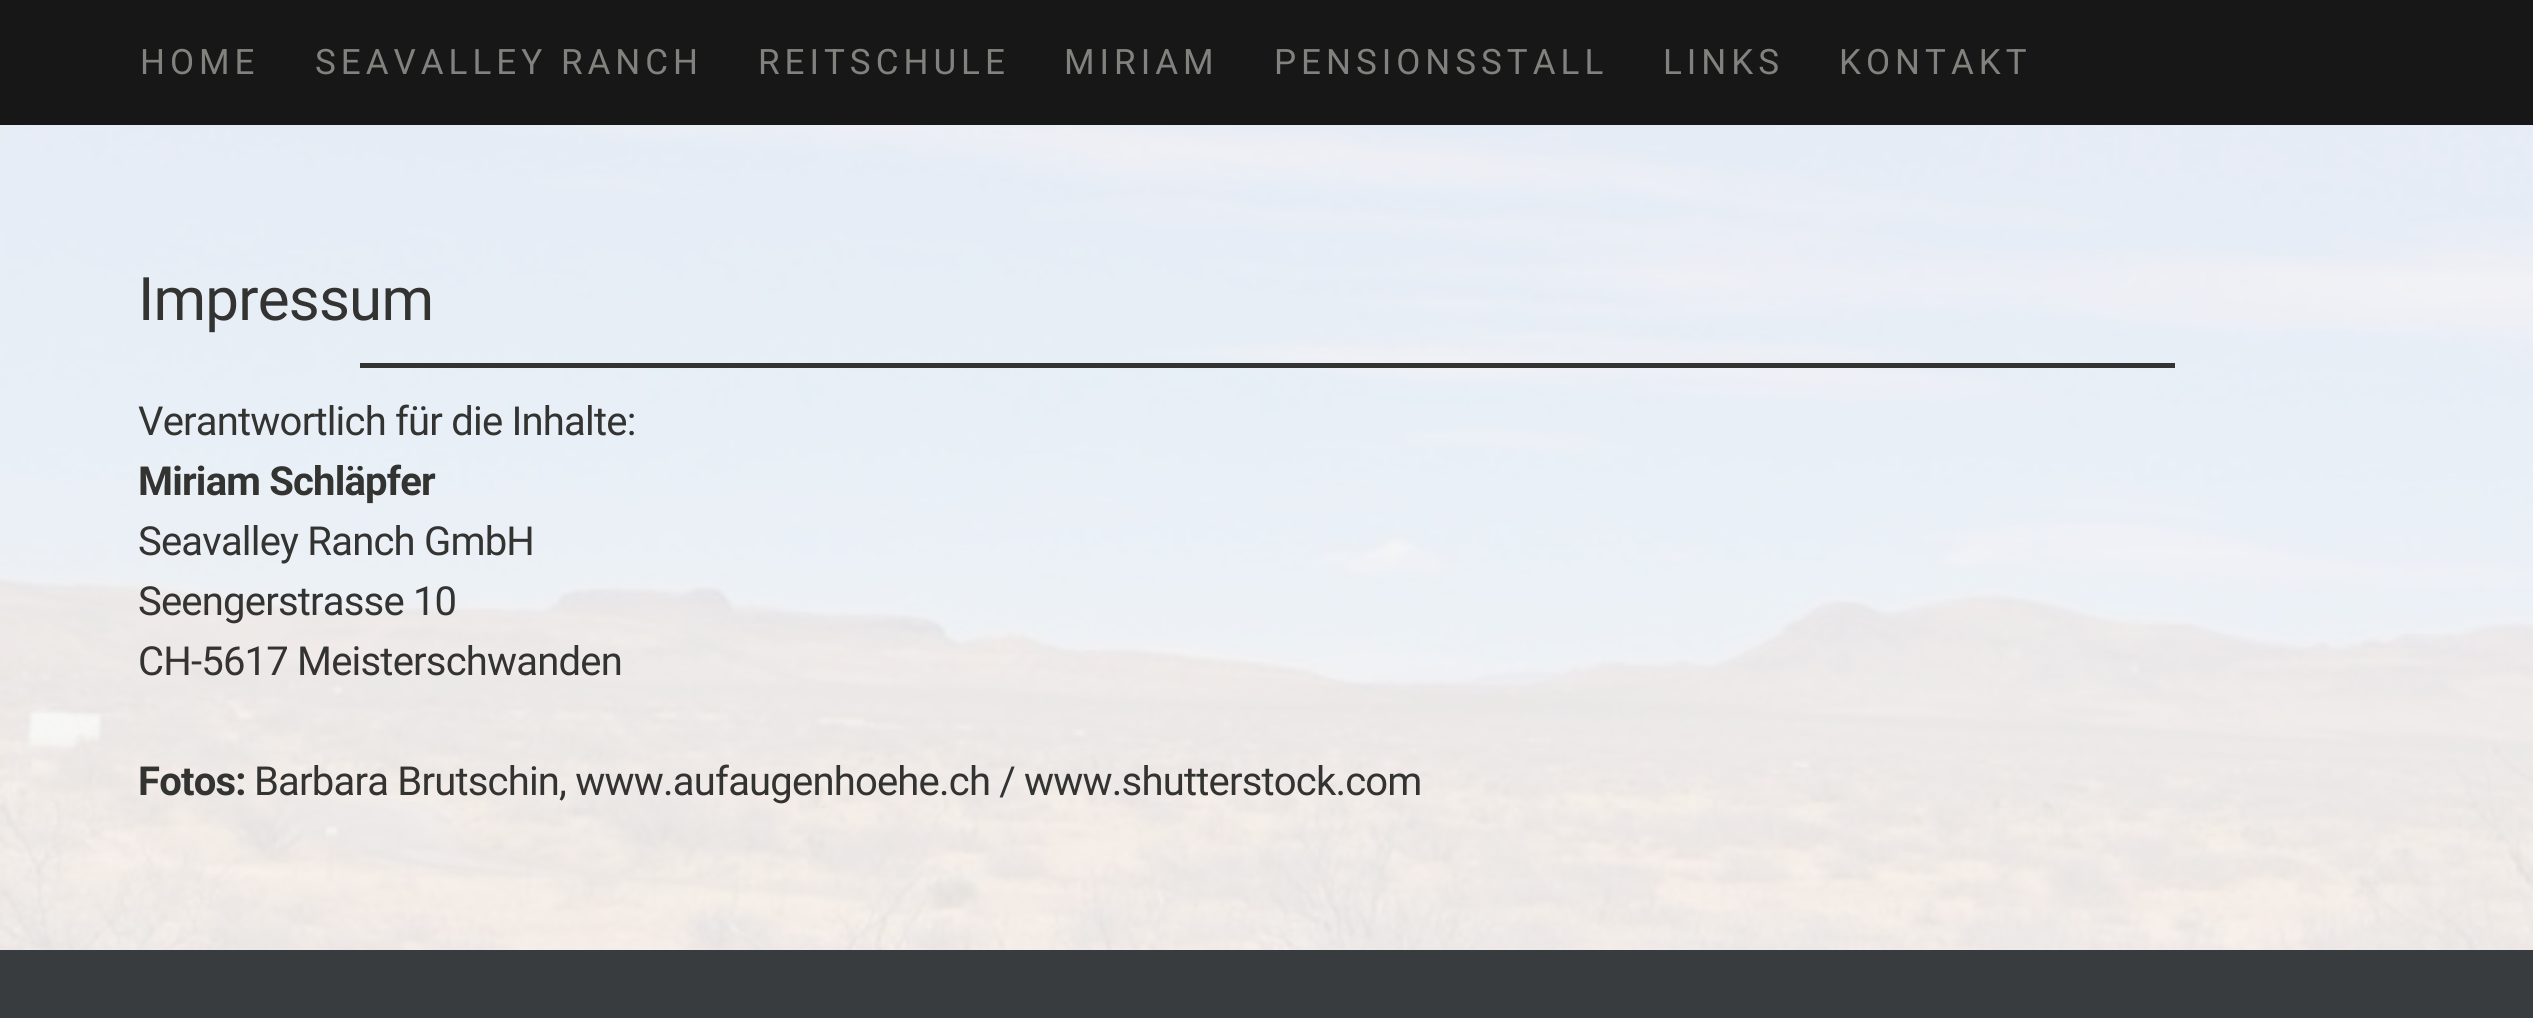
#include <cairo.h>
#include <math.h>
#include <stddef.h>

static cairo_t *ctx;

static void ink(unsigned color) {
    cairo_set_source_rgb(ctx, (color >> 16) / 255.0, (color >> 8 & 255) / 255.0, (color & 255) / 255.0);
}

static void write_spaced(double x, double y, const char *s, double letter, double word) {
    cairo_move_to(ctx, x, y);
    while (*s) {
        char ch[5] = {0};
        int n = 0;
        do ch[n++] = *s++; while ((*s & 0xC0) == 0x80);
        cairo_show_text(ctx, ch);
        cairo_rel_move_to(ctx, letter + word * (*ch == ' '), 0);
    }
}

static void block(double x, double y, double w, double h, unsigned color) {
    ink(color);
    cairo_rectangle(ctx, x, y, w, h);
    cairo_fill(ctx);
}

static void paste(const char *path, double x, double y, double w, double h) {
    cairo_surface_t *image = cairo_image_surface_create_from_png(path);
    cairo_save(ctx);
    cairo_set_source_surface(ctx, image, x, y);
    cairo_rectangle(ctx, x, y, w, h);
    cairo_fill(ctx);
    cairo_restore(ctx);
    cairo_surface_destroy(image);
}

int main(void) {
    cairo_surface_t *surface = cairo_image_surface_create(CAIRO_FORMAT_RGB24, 2533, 1018);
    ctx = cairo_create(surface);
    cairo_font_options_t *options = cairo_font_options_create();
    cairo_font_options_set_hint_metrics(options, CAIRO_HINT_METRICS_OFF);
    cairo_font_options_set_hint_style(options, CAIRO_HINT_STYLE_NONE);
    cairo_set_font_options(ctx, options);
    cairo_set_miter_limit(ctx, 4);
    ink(0xffffff);
    cairo_paint(ctx);
    block(0, 0, 2533, 125, 0x171717);
    cairo_select_font_face(ctx, "Roboto", CAIRO_FONT_SLANT_NORMAL, CAIRO_FONT_WEIGHT_NORMAL);
    cairo_set_font_size(ctx, 35);
    ink(0x81817e);
    write_spaced(140, 74, "HOME", 5, 0);
    write_spaced(315, 74, "SEAVALLEY RANCH", 5, 0);
    write_spaced(758, 74, "REITSCHULE", 5, 0);
    write_spaced(1064, 74, "MIRIAM", 5, 0);
    write_spaced(1274, 74, "PENSIONSSTALL", 5, 0);
    write_spaced(1663, 74, "LINKS", 5, 0);
    write_spaced(1839, 74, "KONTAKT", 5, 0);
    paste("pic1.png", 0, 125, 2533, 825);
    cairo_set_source_rgba(ctx, 0.965, 0.965, 0.965, 0.9);
    cairo_rectangle(ctx, 0, 125, 2533, 825);
    cairo_fill(ctx);
    cairo_set_font_size(ctx, 60);
    ink(0x333332);
    write_spaced(138, 320, "Impressum", -0.8, 0);
    block(360, 363, 1815, 5, 0x333332);
    cairo_set_font_size(ctx, 40);
    write_spaced(138, 435, "Verantwortlich für die Inhalte:", -0.8, 0);
    cairo_select_font_face(ctx, "Roboto", CAIRO_FONT_SLANT_NORMAL, CAIRO_FONT_WEIGHT_BOLD);
    write_spaced(138, 495, "Miriam Schläpfer", -0.8, 0);
    cairo_select_font_face(ctx, "Roboto", CAIRO_FONT_SLANT_NORMAL, CAIRO_FONT_WEIGHT_NORMAL);
    write_spaced(138, 555, "Seavalley Ranch GmbH", -0.8, 0);
    write_spaced(138, 615, "Seengerstrasse 10", -0.8, 0);
    write_spaced(138, 675, "CH-5617 Meisterschwanden", -0.8, 0);
    cairo_select_font_face(ctx, "Roboto", CAIRO_FONT_SLANT_NORMAL, CAIRO_FONT_WEIGHT_BOLD);
    write_spaced(138, 795, "Fotos:", -0.8, 0);
    cairo_select_font_face(ctx, "Roboto", CAIRO_FONT_SLANT_NORMAL, CAIRO_FONT_WEIGHT_NORMAL);
    write_spaced(254, 795, "Barbara Brutschin, www.aufaugenhoehe.ch / www.shutterstock.com", -0.8, 0);
    block(0, 950, 2533, 68, 0x383c3f);
    cairo_surface_write_to_png(surface, "screenshot.png");
    cairo_font_options_destroy(options);
    cairo_destroy(ctx);
    cairo_surface_destroy(surface);
    return 0;
}
